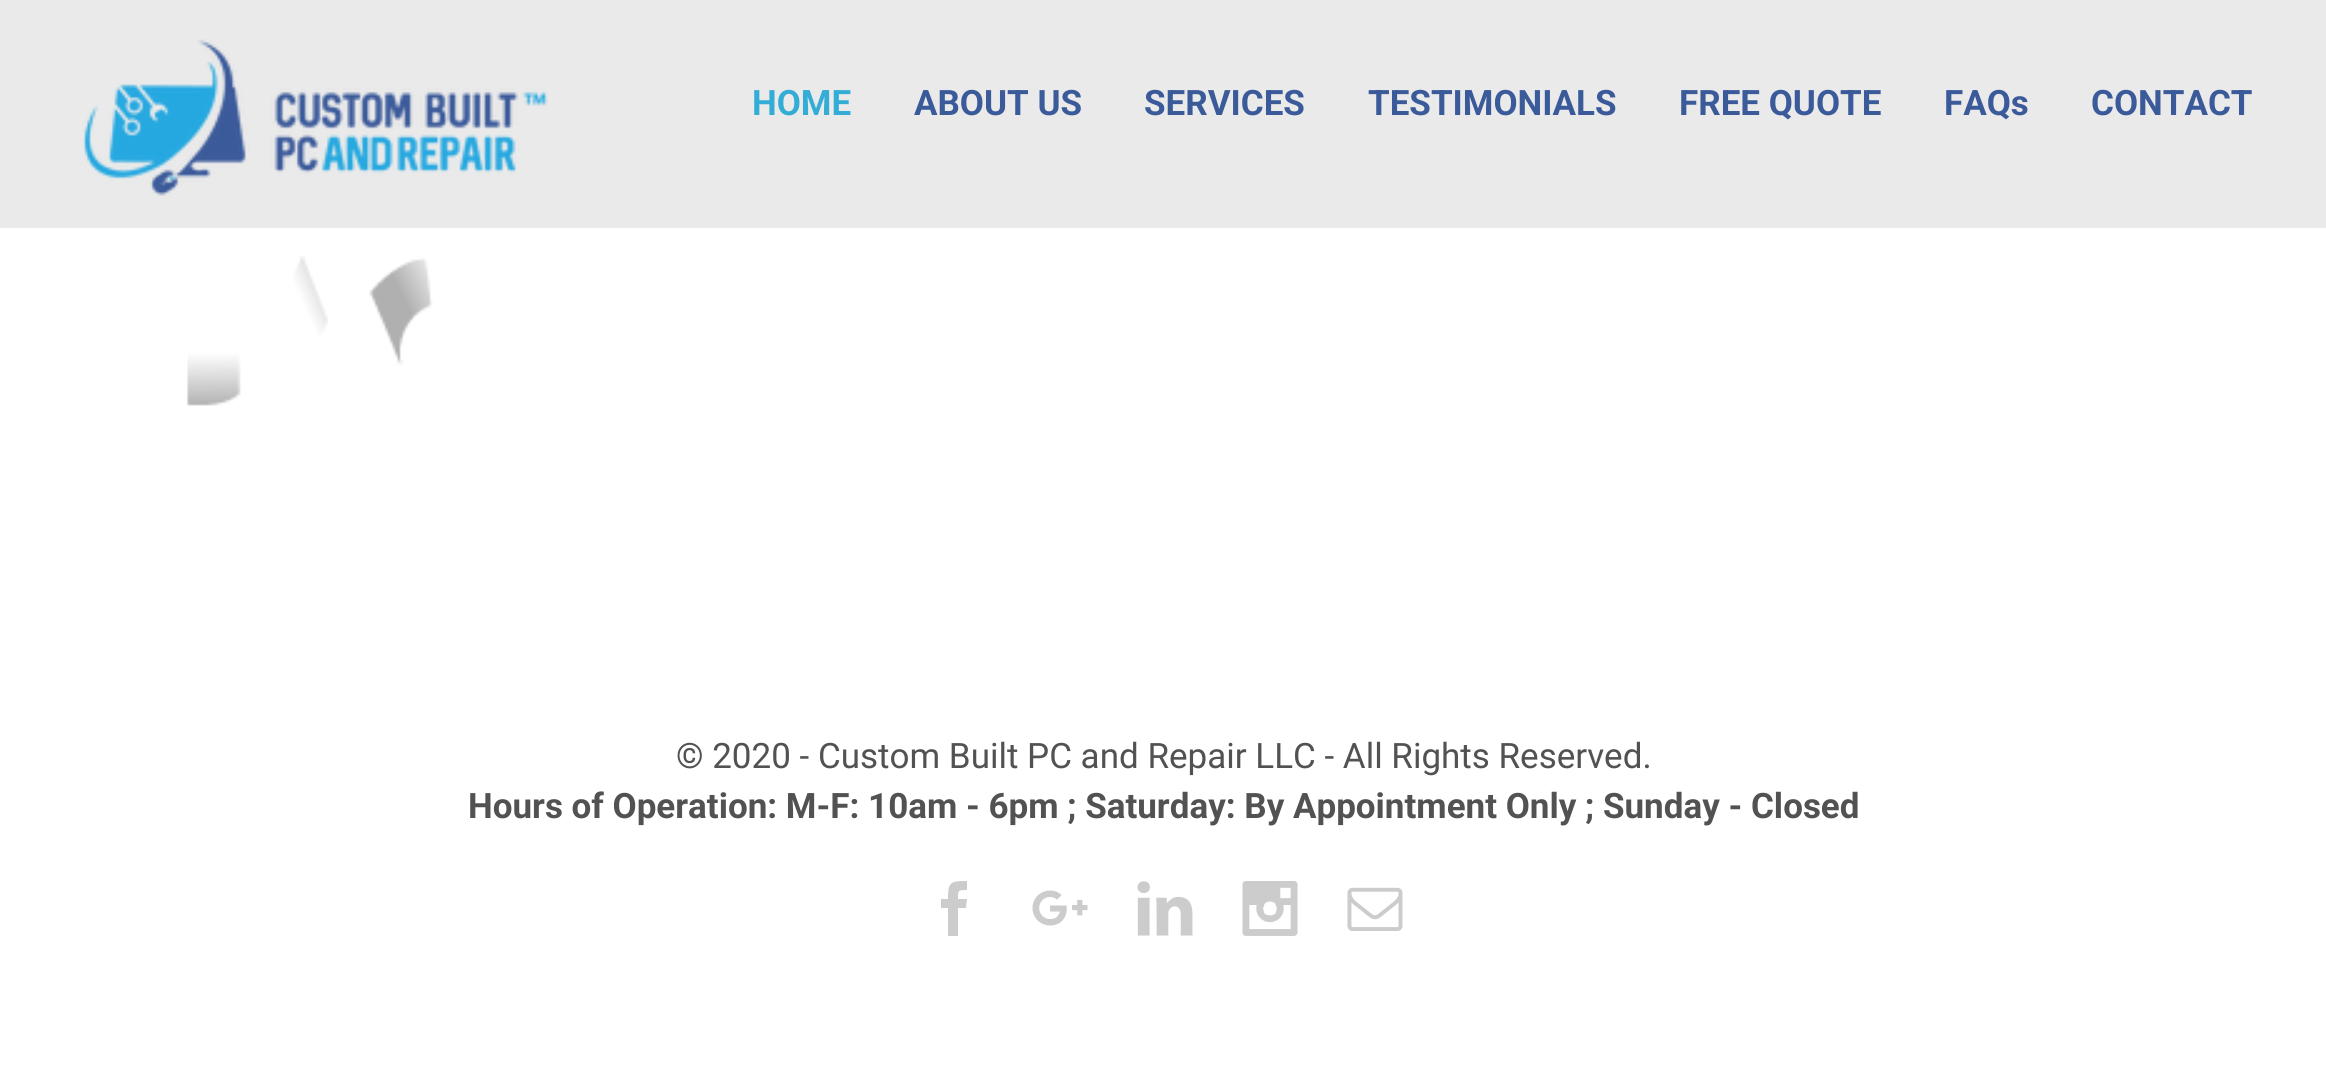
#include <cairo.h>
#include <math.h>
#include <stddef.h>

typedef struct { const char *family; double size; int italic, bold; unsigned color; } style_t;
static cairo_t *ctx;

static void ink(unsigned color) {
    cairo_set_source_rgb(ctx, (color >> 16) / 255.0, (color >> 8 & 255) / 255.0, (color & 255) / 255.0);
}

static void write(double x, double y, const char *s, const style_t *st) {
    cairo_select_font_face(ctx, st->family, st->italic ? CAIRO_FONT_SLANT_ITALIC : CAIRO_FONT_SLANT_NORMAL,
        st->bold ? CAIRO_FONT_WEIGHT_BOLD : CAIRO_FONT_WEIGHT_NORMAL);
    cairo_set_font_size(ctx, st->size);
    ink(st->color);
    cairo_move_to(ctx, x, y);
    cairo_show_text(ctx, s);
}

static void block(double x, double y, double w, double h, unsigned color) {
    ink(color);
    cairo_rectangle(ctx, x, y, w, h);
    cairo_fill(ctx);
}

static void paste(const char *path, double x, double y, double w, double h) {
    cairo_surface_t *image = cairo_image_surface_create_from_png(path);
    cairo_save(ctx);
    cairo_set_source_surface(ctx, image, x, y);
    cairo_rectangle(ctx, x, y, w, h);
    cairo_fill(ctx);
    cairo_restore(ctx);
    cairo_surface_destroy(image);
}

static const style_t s1 = {"Roboto", 35, 0, 1, 0x33add6};
static const style_t s2 = {"Roboto", 35, 0, 1, 0x3b5a9a};
static const style_t s3 = {"Roboto", 35, 0, 0, 0x525252};
static const style_t s4 = {"Roboto", 35, 0, 1, 0x525252};

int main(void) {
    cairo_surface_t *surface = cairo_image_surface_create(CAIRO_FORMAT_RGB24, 2326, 1072);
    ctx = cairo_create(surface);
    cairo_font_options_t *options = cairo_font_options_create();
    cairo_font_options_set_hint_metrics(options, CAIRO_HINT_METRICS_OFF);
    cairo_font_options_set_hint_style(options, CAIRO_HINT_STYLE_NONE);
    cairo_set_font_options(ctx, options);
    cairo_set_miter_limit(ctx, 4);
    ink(0xffffff);
    cairo_paint(ctx);
    block(0, 0, 2326, 228, 0xeaeaea);
    paste("pic1.png", 82, 39, 466, 157);
    write(752, 115, "HOME", &s1);
    write(914, 115, "ABOUT US", &s2);
    write(1144, 115, "SERVICES", &s2);
    write(1368, 115, "TESTIMONIALS", &s2);
    write(1679, 115, "FREE QUOTE", &s2);
    write(1944, 115, "FAQs", &s2);
    write(2091, 115, "CONTACT", &s2);
    paste("pic2.png", 187, 255, 246, 151);
    write(676, 768, "© 2020 - Custom Built PC and Repair LLC - All Rights Reserved.", &s3);
    write(468, 818, "Hours of Operation: M-F: 10am - 6pm ; Saturday: By Appointment Only ; Sunday - Closed", &s4);
    ink(0xcccccc);
    cairo_new_path(ctx);
    cairo_move_to(ctx, 958, 936);
    cairo_line_to(ctx, 948, 936);
    cairo_line_to(ctx, 948, 908);
    cairo_line_to(ctx, 941, 908);
    cairo_line_to(ctx, 941, 899);
    cairo_line_to(ctx, 948, 899);
    cairo_curve_to(ctx, 948, 882, 950, 881, 967, 881);
    cairo_line_to(ctx, 967, 890);
    cairo_curve_to(ctx, 958, 890, 958, 890, 958, 899);
    cairo_line_to(ctx, 967, 899);
    cairo_line_to(ctx, 966, 908);
    cairo_line_to(ctx, 958, 908);
    cairo_close_path(ctx);
    cairo_fill(ctx);
    paste("pic3.png", 1032, 890, 56, 36);
    paste("pic4.png", 1137, 881, 56, 55);
    paste("pic5.png", 1242, 881, 56, 55);
    paste("pic6.png", 1347, 887, 56, 44);
    cairo_surface_write_to_png(surface, "screenshot.png");
    cairo_font_options_destroy(options);
    cairo_destroy(ctx);
    cairo_surface_destroy(surface);
    return 0;
}
